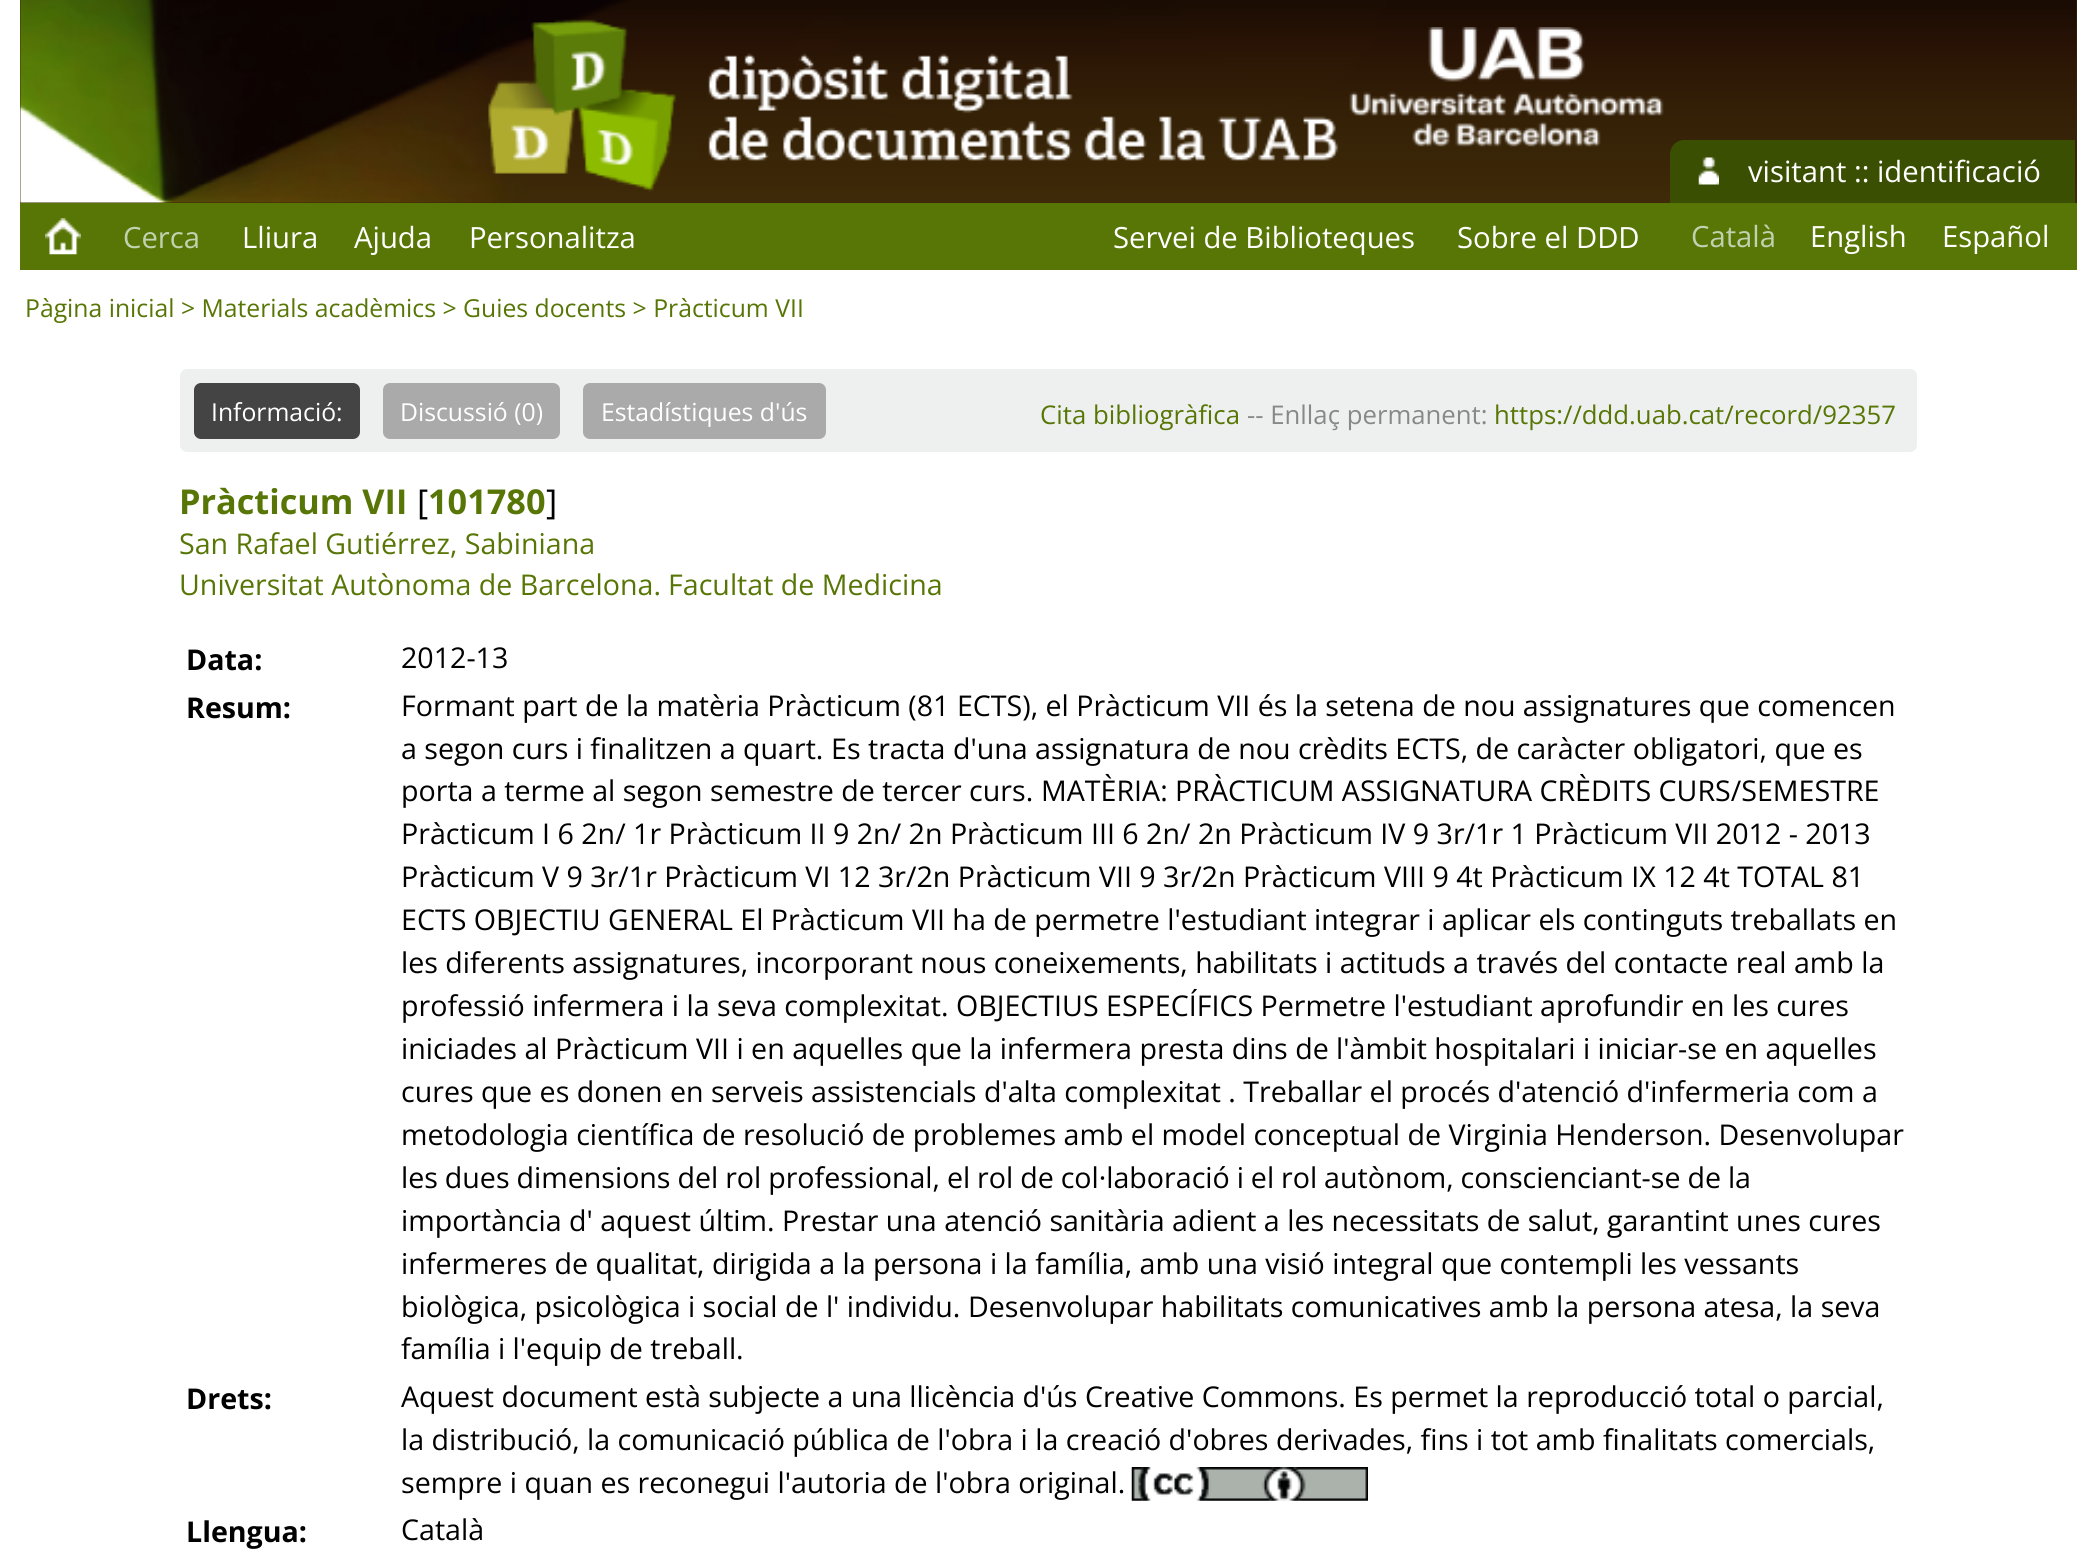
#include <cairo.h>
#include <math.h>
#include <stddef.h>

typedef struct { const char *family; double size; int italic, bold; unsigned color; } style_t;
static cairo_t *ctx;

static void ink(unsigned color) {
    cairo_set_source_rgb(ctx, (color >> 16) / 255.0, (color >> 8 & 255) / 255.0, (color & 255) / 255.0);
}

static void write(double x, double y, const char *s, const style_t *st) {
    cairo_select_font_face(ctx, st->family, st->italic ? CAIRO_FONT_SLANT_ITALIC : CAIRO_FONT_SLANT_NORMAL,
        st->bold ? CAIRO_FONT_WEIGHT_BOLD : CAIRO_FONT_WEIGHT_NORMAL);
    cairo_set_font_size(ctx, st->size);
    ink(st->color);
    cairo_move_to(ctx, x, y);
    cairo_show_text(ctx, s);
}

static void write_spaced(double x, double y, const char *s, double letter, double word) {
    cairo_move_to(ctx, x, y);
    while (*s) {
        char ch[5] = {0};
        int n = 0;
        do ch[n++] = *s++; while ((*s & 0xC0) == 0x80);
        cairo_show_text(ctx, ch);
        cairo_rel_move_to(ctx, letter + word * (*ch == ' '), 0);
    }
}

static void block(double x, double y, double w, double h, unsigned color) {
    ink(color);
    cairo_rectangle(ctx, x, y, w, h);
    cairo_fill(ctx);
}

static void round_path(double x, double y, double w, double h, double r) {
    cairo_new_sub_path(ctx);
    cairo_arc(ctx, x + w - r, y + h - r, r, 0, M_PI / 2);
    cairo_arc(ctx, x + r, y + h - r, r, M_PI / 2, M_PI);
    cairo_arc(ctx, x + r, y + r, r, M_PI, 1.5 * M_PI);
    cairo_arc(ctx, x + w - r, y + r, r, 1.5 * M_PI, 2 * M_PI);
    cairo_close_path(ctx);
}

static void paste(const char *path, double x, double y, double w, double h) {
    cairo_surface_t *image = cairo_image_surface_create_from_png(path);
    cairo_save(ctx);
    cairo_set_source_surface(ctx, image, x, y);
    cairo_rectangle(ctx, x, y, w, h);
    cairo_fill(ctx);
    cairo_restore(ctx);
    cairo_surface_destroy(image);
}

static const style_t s1 = {"Open Sans", 29.25, 0, 0, 0xffffff};
static const style_t s2 = {"Open Sans", 29.25, 0, 0, 0xc1d2b0};
static const style_t s3 = {"Open Sans", 24.75, 0, 0, 0x587606};
static const style_t s4 = {"Open Sans", 24.75, 0, 0, 0xffffff};
static const style_t s5 = {"Open Sans", 25.75, 0, 0, 0x587606};
static const style_t s6 = {"Open Sans", 25.75, 0, 0, 0x888888};
static const style_t s7 = {"Open Sans", 34.25, 0, 1, 0x587606};
static const style_t s8 = {"Open Sans", 34.25, 0, 0, 0x000000};
static const style_t s9 = {"Open Sans", 28.6, 0, 0, 0x587606};
static const style_t s10 = {"Open Sans", 28.6, 0, 1, 0x000000};
static const style_t s11 = {"Open Sans", 28.6, 0, 0, 0x000000};

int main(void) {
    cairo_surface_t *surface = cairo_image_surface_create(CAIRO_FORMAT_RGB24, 2097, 1551);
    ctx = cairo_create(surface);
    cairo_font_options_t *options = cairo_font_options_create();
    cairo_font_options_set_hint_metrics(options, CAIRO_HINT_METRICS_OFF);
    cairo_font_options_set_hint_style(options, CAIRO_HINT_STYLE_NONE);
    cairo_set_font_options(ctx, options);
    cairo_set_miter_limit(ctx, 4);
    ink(0xffffff);
    cairo_paint(ctx);
    block(20, 0, 2057, 203, 0x3d2908);
    paste("pic2.png", 20, 0, 2057, 203);
    paste("pic1.png", 1349, 27, 315, 120);
    ink(0x3b4f03);
    cairo_new_path(ctx);
    cairo_move_to(ctx, 1684, 140);
    cairo_line_to(ctx, 2075, 140);
    cairo_line_to(ctx, 2075, 203);
    cairo_line_to(ctx, 1670, 203);
    cairo_line_to(ctx, 1670, 154);
    cairo_curve_to(ctx, 1670, 146.5, 1676.5, 140, 1684, 140);
    cairo_close_path(ctx);
    cairo_fill(ctx);
    paste("pic3.png", 1698, 157, 21, 28);
    write(1748, 182, "visitant :: identificació", &s1);
    block(20, 203, 2057, 67, 0x587606);
    paste("pic4.png", 45, 218, 36, 37);
    write(123, 248, "Cerca", &s2);
    write(242, 248, "Lliura", &s1);
    write(354, 248, "Ajuda", &s1);
    write(469, 248, "Personalitza", &s1);
    write(1113, 248, "Servei de Biblioteques", &s1);
    write(1457, 248, "Sobre el DDD", &s1);
    write(1691, 247, "Català", &s2);
    write(1810, 247, "English", &s1);
    write(1942, 247, "Español", &s1);
    write(25, 317, "Pàgina inicial > Materials acadèmics > Guies docents > Pràcticum VII", &s3);
    ink(0xeef0ef);
    round_path(180, 369, 1737, 83, 7);
    cairo_fill(ctx);
    ink(0x444444);
    round_path(194, 383, 166, 56, 7);
    cairo_fill(ctx);
    write(211, 421, "Informació:", &s4);
    ink(0xaaaaaa);
    round_path(383, 383, 177, 56, 7);
    cairo_fill(ctx);
    write(400, 421, "Discussió (0)", &s4);
    ink(0xaaaaaa);
    round_path(583, 383, 243, 56, 7);
    cairo_fill(ctx);
    write(601, 421, "Estadístiques d'ús", &s4);
    write(1040, 424, "Cita bibliogràfica", &s5);
    write(1247, 424, "-- Enllaç permanent:", &s6);
    write(1494, 424, "https://ddd.uab.cat/record/92357", &s5);
    write(179, 514, "Pràcticum VII", &s7);
    write(417, 514, "[", &s8);
    write(428, 514, "101780", &s7);
    write(546, 514, "]", &s8);
    write(179, 554, "San Rafael Gutiérrez, Sabiniana", &s9);
    write(179, 595, "Universitat Autònoma de Barcelona.", &s9);
    write(668, 595, "Facultat de Medicina", &s9);
    write(186, 670, "Data:", &s10);
    write(401, 668, "2012-13", &s11);
    write(186, 718, "Resum:", &s10);
    write(401, 716, "Formant part de la matèria Pràcticum (81 ECTS), el Pràcticum VII és la setena de nou assignatures que comencen", &s11);
    write(401, 759, "a segon curs i finalitzen a quart.", &s11);
    write(831, 759, "Es tracta d'una assignatura de nou crèdits ECTS, de caràcter obligatori, que es", &s11);
    write(401, 801, "porta a terme al segon semestre de tercer curs.", &s11);
    write(1041, 801, "MATÈRIA: PRÀCTICUM ASSIGNATURA CRÈDITS CURS/SEMESTRE", &s11);
    write(401, 844, "Pràcticum I 6 2n/ 1r Pràcticum II 9 2n/ 2n Pràcticum III 6 2n/ 2n Pràcticum IV 9 3r/1r 1 Pràcticum VII 2012 - 2013", &s11);
    write(401, 887, "Pràcticum V 9 3r/1r Pràcticum VI 12 3r/2n Pràcticum VII 9 3r/2n Pràcticum VIII 9 4t Pràcticum IX 12 4t TOTAL 81", &s11);
    write(401, 930, "ECTS OBJECTIU GENERAL El Pràcticum VII ha de permetre l'estudiant integrar i aplicar els continguts treballats en", &s11);
    write(401, 973, "les diferents assignatures, incorporant nous coneixements, habilitats i actituds a través del contacte real amb la", &s11);
    write(401, 1016, "professió infermera i la seva complexitat.", &s11);
    write(956, 1016, "OBJECTIUS ESPECÍFICS Permetre l'estudiant aprofundir en les cures", &s11);
    write(401, 1059, "iniciades al Pràcticum VII i en aquelles que la infermera presta dins de l'àmbit hospitalari i iniciar-se en aquelles", &s11);
    write(401, 1102, "cures que es donen en serveis assistencials d'alta complexitat . Treballar el procés d'atenció d'infermeria com a", &s11);
    write(401, 1145, "metodologia científica de resolució de problemes amb el model conceptual de Virginia Henderson. Desenvolupar", &s11);
    write_spaced(401, 1188, "les dues dimensions del rol professional, el rol de col·laboració i el rol autònom, conscienciant-se de la", 0, -0.5);
    write(401, 1231, "importància d' aquest últim.", &s11);
    write(782, 1231, "Prestar una atenció sanitària adient a les necessitats de salut, garantint unes cures", &s11);
    write(401, 1274, "infermeres de qualitat, dirigida a la persona i la família, amb una visió integral que contempli les vessants", &s11);
    write(401, 1317, "biològica, psicològica i social de l' individu.", &s11);
    write(968, 1317, "Desenvolupar habilitats comunicatives amb la persona atesa, la seva", &s11);
    write(401, 1359, "família i l'equip de treball.", &s11);
    write(186, 1409, "Drets:", &s10);
    write(401, 1407, "Aquest document està subjecte a una llicència d'ús Creative Commons. Es permet la reproducció total o parcial,", &s11);
    write(401, 1450, "la distribució, la comunicació pública de l'obra i la creació d'obres derivades, fins i tot amb finalitats comercials,", &s11);
    write(401, 1493, "sempre i quan es reconegui l'autoria de l'obra original.", &s11);
    paste("pic5.png", 1131, 1467, 237, 34);
    write(186, 1542, "Llengua:", &s10);
    write(401, 1540, "Català", &s11);
    cairo_surface_write_to_png(surface, "screenshot.png");
    cairo_font_options_destroy(options);
    cairo_destroy(ctx);
    cairo_surface_destroy(surface);
    return 0;
}
